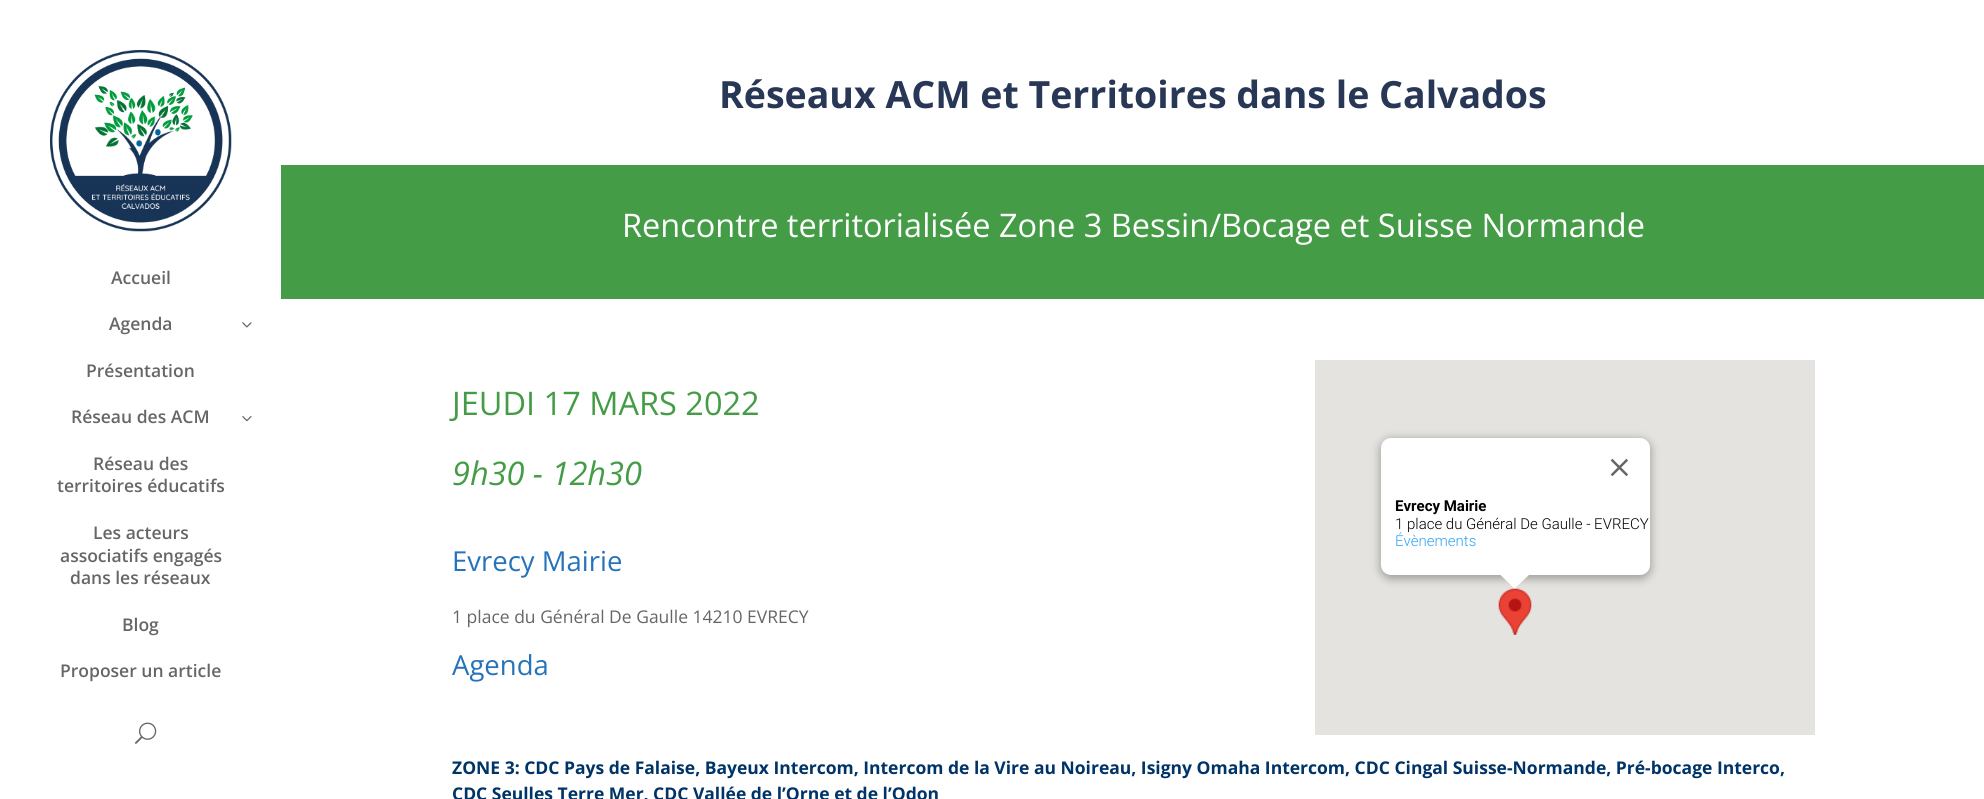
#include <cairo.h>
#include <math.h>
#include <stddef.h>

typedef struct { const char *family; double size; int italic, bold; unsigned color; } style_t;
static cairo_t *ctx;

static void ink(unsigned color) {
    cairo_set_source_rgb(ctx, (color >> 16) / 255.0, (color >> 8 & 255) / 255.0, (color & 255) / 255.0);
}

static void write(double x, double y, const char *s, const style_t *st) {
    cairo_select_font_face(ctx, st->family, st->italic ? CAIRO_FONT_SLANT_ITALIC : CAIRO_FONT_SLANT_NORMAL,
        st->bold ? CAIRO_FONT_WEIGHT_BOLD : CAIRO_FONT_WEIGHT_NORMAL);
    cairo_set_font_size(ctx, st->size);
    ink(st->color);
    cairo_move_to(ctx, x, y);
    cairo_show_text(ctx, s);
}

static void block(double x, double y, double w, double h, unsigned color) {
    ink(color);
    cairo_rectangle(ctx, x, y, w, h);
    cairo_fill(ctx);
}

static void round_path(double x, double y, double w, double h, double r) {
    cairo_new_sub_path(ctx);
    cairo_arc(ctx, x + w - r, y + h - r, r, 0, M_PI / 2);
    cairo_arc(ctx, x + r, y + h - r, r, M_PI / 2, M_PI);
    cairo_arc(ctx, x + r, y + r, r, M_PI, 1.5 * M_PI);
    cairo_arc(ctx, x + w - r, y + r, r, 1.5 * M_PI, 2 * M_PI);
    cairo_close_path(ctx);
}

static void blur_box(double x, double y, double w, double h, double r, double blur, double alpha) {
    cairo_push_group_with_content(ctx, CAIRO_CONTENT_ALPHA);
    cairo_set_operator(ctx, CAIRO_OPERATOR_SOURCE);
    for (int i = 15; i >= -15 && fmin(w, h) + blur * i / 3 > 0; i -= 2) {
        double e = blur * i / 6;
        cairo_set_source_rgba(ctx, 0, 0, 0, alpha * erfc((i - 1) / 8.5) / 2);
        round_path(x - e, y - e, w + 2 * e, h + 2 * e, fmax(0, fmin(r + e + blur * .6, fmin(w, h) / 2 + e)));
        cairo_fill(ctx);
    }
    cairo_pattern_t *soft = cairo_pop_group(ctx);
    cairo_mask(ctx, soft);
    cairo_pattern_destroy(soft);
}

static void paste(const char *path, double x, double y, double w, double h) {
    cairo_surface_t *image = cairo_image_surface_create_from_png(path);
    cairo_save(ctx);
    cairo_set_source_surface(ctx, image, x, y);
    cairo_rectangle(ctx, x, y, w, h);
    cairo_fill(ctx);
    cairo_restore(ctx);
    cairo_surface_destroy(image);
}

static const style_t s1 = {"Open Sans SemiBold", 17.5, 0, 0, 0x666666};
static const style_t s2 = {"Open Sans", 37.5, 0, 1, 0x283756};
static const style_t s3 = {"Open Sans", 32.5, 0, 0, 0xffffff};
static const style_t s4 = {"Open Sans", 32.5, 0, 0, 0x449c46};
static const style_t s5 = {"Open Sans", 32.5, 1, 0, 0x449c46};
static const style_t s6 = {"Roboto", 15, 0, 1, 0x000000};
static const style_t s7 = {"Roboto Light", 15, 0, 0, 0x000000};
static const style_t s8 = {"Roboto Light", 15, 0, 0, 0x2ea3f2};
static const style_t s9 = {"Open Sans", 27.5, 0, 0, 0x2573b9};
static const style_t s10 = {"Open Sans", 17.5, 0, 0, 0x666666};
static const style_t s11 = {"Open Sans", 17.5, 0, 1, 0x003366};

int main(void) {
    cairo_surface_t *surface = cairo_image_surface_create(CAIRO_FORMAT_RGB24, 1984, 799);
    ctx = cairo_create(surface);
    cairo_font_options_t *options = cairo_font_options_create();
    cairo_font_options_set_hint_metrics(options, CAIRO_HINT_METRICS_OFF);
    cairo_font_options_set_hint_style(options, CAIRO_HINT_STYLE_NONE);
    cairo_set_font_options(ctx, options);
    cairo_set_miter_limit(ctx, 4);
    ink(0xffffff);
    cairo_paint(ctx);
    paste("pic1.png", 50, 50, 182, 182);
    write(111, 284, "Accueil", &s1);
    write(109, 330, "Agenda", &s1);
    paste("pic2.png", 242, 322, 10, 6);
    write(86, 377, "Présentation", &s1);
    write(71, 423, "Réseau des ACM", &s1);
    paste("pic3.png", 242, 416, 10, 6);
    write(93, 470, "Réseau des", &s1);
    write(57, 492, "territoires éducatifs", &s1);
    write(93, 539, "Les acteurs", &s1);
    write(60, 562, "associatifs engagés", &s1);
    write(70, 584, "dans les réseaux", &s1);
    write(122, 631, "Blog", &s1);
    write(60, 677, "Proposer un article", &s1);
    paste("pic4.png", 135, 722, 22, 22);
    write(719, 108, "Réseaux ACM et Territoires dans le Calvados", &s2);
    block(281, 165, 1703, 134, 0x449c46);
    write(622, 237, "Rencontre territorialisée Zone 3 Bessin/Bocage et Suisse Normande", &s3);
    write(452, 415, "JEUDI 17 MARS 2022", &s4);
    write(452, 485, "9h30 - 12h30", &s5);
    block(1315, 360, 500, 375, 0xe5e3df);
    paste("pic6.png", 1498, 588, 34, 47);
    ink(0x000000);
    blur_box(1380, 439, 271, 140, 11, 4.5, 0.3);
    ink(0xffffff);
    round_path(1381, 438, 269, 137, 10);
    cairo_fill(ctx);
    paste("pic5.png", 1610, 458, 18, 19);
    write(1395, 511, "Evrecy Mairie", &s6);
    write(1395, 529, "1 place du Général De Gaulle - EVRECY", &s7);
    write(1395, 546, "Évènements", &s8);
    ink(0xffffff);
    cairo_new_path(ctx);
    cairo_move_to(ctx, 1500, 574);
    cairo_line_to(ctx, 1500, 574.5);
    cairo_line_to(ctx, 1514.5, 588.5);
    cairo_line_to(ctx, 1530, 574);
    cairo_close_path(ctx);
    cairo_fill(ctx);
    write(452, 571, "Evrecy Mairie", &s9);
    write(452, 623, "1 place du Général De Gaulle 14210 EVRECY", &s10);
    write(452, 675, "Agenda", &s9);
    write(452, 774, "ZONE 3: CDC Pays de Falaise, Bayeux Intercom, Intercom de la Vire au Noireau, Isigny Omaha Intercom, CDC Cingal Suisse-Normande, Pré-bocage Interco,", &s11);
    write(452, 800, "CDC Seulles Terre Mer, CDC Vallée de l’Orne et de l’Odon", &s11);
    cairo_surface_write_to_png(surface, "screenshot.png");
    cairo_font_options_destroy(options);
    cairo_destroy(ctx);
    cairo_surface_destroy(surface);
    return 0;
}
